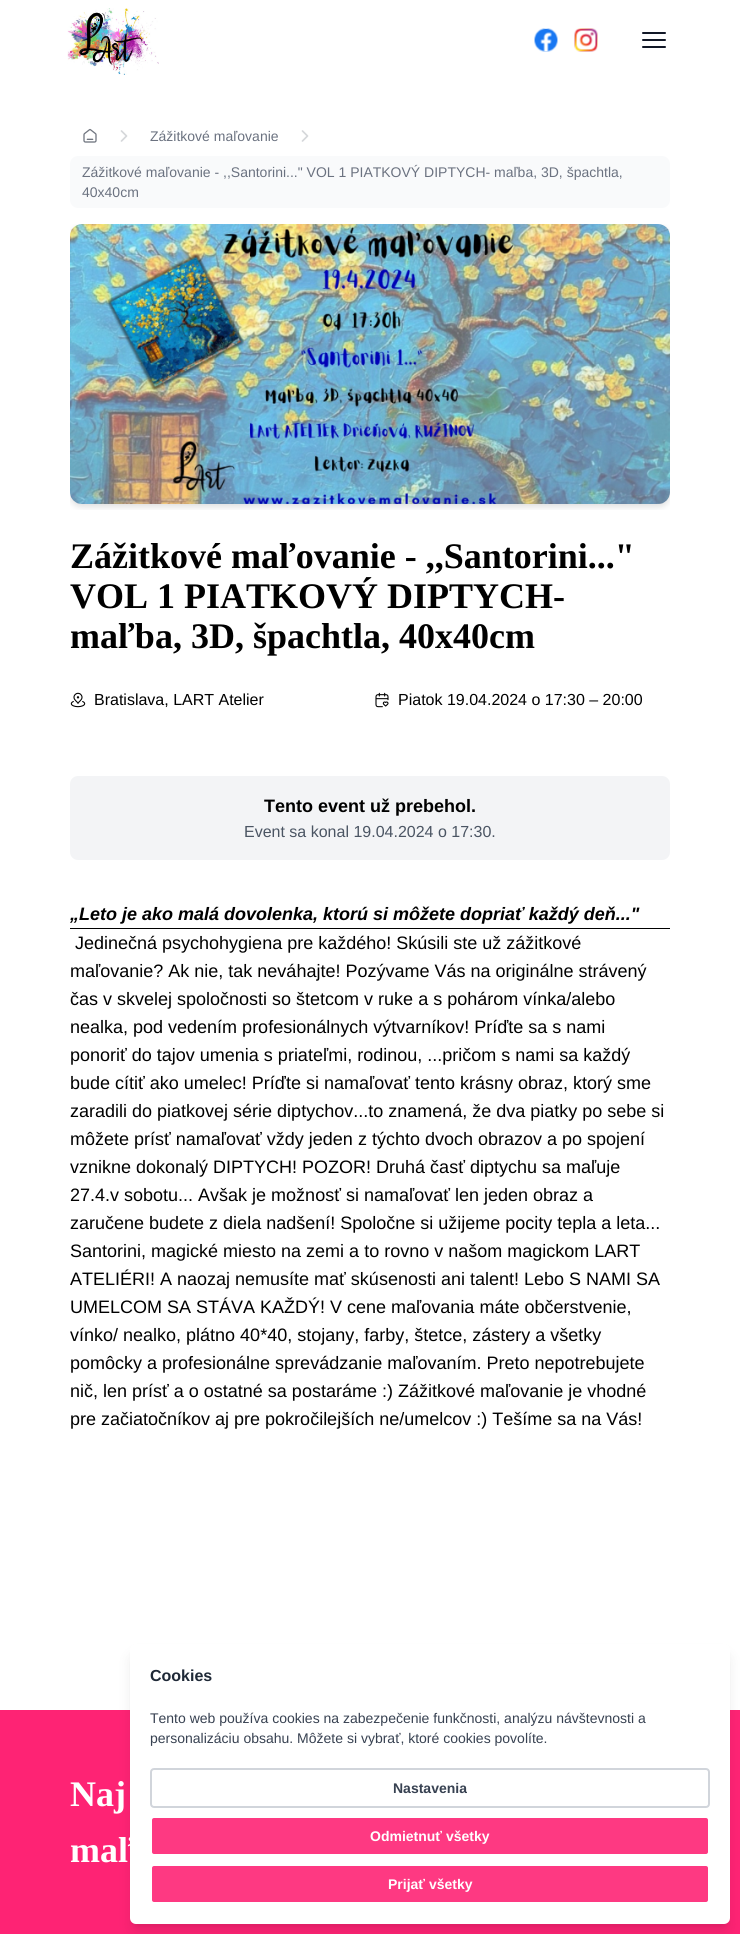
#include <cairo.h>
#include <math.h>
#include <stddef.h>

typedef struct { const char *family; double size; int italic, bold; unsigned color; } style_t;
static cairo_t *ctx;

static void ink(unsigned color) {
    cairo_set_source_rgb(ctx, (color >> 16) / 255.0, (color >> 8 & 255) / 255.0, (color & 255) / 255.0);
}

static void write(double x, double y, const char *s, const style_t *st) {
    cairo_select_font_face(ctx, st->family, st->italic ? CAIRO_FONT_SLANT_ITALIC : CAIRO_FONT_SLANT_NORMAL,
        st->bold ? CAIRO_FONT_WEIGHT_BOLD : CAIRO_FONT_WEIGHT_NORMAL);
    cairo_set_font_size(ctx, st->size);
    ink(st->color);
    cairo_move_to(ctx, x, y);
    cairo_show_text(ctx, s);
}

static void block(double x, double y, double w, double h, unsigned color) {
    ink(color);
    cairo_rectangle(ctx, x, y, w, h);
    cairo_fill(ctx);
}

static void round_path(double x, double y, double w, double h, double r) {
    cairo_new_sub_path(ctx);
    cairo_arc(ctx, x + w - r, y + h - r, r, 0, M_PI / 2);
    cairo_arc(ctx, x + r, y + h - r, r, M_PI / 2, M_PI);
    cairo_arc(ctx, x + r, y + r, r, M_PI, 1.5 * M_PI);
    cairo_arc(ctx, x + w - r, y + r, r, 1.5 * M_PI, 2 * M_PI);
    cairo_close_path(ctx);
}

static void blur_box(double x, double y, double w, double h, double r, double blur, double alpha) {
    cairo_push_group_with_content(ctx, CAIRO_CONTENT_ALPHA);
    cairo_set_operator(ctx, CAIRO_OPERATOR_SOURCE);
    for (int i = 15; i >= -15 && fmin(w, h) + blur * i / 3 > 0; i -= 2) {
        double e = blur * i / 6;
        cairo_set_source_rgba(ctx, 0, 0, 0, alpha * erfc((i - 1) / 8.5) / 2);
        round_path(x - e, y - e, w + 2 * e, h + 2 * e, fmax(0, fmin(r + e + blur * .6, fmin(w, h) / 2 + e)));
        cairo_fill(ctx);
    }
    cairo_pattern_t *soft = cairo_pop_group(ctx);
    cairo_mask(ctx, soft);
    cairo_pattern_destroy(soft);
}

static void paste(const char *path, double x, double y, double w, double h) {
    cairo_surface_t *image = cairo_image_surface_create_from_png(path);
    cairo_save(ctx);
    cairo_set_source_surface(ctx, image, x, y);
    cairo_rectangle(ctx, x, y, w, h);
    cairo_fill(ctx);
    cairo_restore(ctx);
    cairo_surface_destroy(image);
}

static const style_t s1 = {"Liberation Sans", 14, 0, 0, 0x6b7280};
static const style_t s2 = {"Liberation Serif", 36, 0, 1, 0x000000};
static const style_t s3 = {"Liberation Sans", 16, 0, 0, 0x000000};
static const style_t s4 = {"Liberation Sans", 18, 0, 1, 0x000000};
static const style_t s5 = {"Liberation Sans", 16, 0, 0, 0x4b5563};
static const style_t s6 = {"Liberation Sans", 18, 1, 1, 0x000000};
static const style_t s7 = {"Liberation Sans", 18, 0, 0, 0x000000};
static const style_t s8 = {"Liberation Sans", 16, 0, 1, 0x1f2937};
static const style_t s9 = {"Liberation Sans", 14, 0, 0, 0x374151};
static const style_t s10 = {"Liberation Sans", 14, 0, 1, 0x374151};
static const style_t s11 = {"Liberation Sans", 14, 0, 1, 0xffffff};
static const style_t s12 = {"Liberation Serif", 36, 0, 1, 0xffffff};

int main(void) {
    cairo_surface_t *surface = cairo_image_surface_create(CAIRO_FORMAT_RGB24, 740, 1934);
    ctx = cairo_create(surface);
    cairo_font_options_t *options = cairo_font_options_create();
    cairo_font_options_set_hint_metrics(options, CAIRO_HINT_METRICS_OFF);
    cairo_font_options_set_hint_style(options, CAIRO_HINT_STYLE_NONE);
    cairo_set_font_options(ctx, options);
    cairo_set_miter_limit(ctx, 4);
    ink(0xffffff);
    cairo_paint(ctx);
    paste("pic1.png", 67, 8, 92, 67);
    paste("pic2.png", 534, 28, 24, 24);
    paste("pic3.png", 574, 28, 24, 24);
    cairo_new_path(ctx);
    cairo_move_to(ctx, 643, 33);
    cairo_line_to(ctx, 665, 33);
    cairo_move_to(ctx, 643, 40);
    cairo_line_to(ctx, 665, 40);
    cairo_move_to(ctx, 643, 47);
    cairo_line_to(ctx, 665, 47);
    ink(0x111827);
    cairo_set_line_cap(ctx, CAIRO_LINE_CAP_ROUND);
    cairo_set_line_join(ctx, CAIRO_LINE_JOIN_ROUND);
    cairo_stroke(ctx);
    paste("pic4.png", 83, 128, 14, 15);
    cairo_new_path(ctx);
    cairo_move_to(ctx, 121.5, 141);
    cairo_line_to(ctx, 126.5, 136);
    cairo_line_to(ctx, 121.5, 131);
    ink(0xd5d7da);
    cairo_set_line_width(ctx, 1.7);
    cairo_stroke(ctx);
    write(150, 141, "Zážitkové maľovanie", &s1);
    cairo_new_path(ctx);
    cairo_move_to(ctx, 302.5, 141);
    cairo_line_to(ctx, 307.5, 136);
    cairo_line_to(ctx, 302.5, 131);
    ink(0xd5d7da);
    cairo_stroke(ctx);
    ink(0xf9fafb);
    round_path(70, 156, 600, 52, 8);
    cairo_fill(ctx);
    write(82, 177, "Zážitkové maľovanie - ,,Santorini...\" VOL 1 PIATKOVÝ DIPTYCH- maľba, 3D, špachtla,", &s1);
    write(82, 197, "40x40cm", &s1);
    paste("pic5.png", 70, 224, 600, 286);
    write(70, 568, "Zážitkové maľovanie - ,,Santorini...\"", &s2);
    write(70, 608, "VOL 1 PIATKOVÝ DIPTYCH-", &s2);
    write(70, 648, "maľba, 3D, špachtla, 40x40cm", &s2);
    paste("pic6.png", 70, 692, 16, 16);
    write(94, 705, "Bratislava, LART Atelier", &s3);
    paste("pic7.png", 375, 692, 14, 16);
    write(398, 705, "Piatok 19.04.2024 o 17:30 – 20:00", &s3);
    ink(0xf3f4f6);
    round_path(70, 776, 600, 84, 8);
    cairo_fill(ctx);
    write(264, 812, "Tento event už prebehol.", &s4);
    write(244, 837, "Event sa konal 19.04.2024 o 17:30.", &s5);
    write(70, 920, "„Leto je ako malá dovolenka, ktorú si môžete dopriať každý deň...\"", &s6);
    block(70, 928, 600, 1, 0x000000);
    write(75, 949, "Jedinečná psychohygiena pre každého! Skúsili ste už zážitkové", &s7);
    write(70, 977, "maľovanie? Ak nie, tak neváhajte! Pozývame Vás na originálne strávený", &s7);
    write(70, 1005, "čas v skvelej spoločnosti so štetcom v ruke a s pohárom vínka/alebo", &s7);
    write(70, 1033, "nealka, pod vedením profesionálnych výtvarníkov! Príďte sa s nami", &s7);
    write(70, 1061, "ponoriť do tajov umenia s priateľmi, rodinou, ...pričom s nami sa každý", &s7);
    write(70, 1089, "bude cítiť ako umelec! Príďte si namaľovať tento krásny obraz, ktorý sme", &s7);
    write(70, 1117, "zaradili do piatkovej série diptychov...to znamená, že dva piatky po sebe si", &s7);
    write(70, 1145, "môžete prísť namaľovať vždy jeden z týchto dvoch obrazov a po spojení", &s7);
    write(70, 1173, "vznikne dokonalý DIPTYCH! POZOR! Druhá časť diptychu sa maľuje", &s7);
    write(70, 1201, "27.4.v sobotu... Avšak je možnosť si namaľovať len jeden obraz a", &s7);
    write(70, 1229, "zaručene budete z diela nadšení! Spoločne si užijeme pocity tepla a leta...", &s7);
    write(70, 1257, "Santorini, magické miesto na zemi a to rovno v našom magickom LART", &s7);
    write(70, 1285, "ATELIÉRI! A naozaj nemusíte mať skúsenosti ani talent! Lebo S NAMI SA", &s7);
    write(70, 1313, "UMELCOM SA STÁVA KAŽDÝ! V cene maľovania máte občerstvenie,", &s7);
    write(70, 1341, "vínko/ nealko, plátno 40*40, stojany, farby, štetce, zástery a všetky", &s7);
    write(70, 1369, "pomôcky a profesionálne sprevádzanie maľovaním. Preto nepotrebujete", &s7);
    write(70, 1397, "nič, len prísť a o ostatné sa postaráme :) Zážitkové maľovanie je vhodné", &s7);
    write(70, 1425, "pre začiatočníkov aj pre pokročilejších ne/umelcov :) Tešíme sa na Vás!", &s7);
    block(0, 1710, 740, 224, 0xfe2374);
    ink(0x000000);
    blur_box(134, 1652, 592, 272, 2, 3, 0.1);
    blur_box(133, 1657, 594, 274, 3, 7.5, 0.1);
    ink(0xffffff);
    round_path(130, 1644, 600, 280, 6);
    cairo_fill(ctx);
    write(150, 1681, "Cookies", &s8);
    write(150, 1723, "Tento web používa cookies na zabezpečenie funkčnosti, analýzu návštevnosti a", &s9);
    write(150, 1743, "personalizáciu obsahu. Môžete si vybrať, ktoré cookies povolíte.", &s9);
    round_path(151, 1769, 558, 38, 3);
    ink(0xd1d5db);
    cairo_set_line_width(ctx, 2);
    cairo_set_line_cap(ctx, CAIRO_LINE_CAP_BUTT);
    cairo_set_line_join(ctx, CAIRO_LINE_JOIN_MITER);
    cairo_stroke(ctx);
    write(393, 1793, "Nastavenia", &s10);
    ink(0xfe3982);
    round_path(151, 1817, 558, 38, 3);
    cairo_fill_preserve(ctx);
    ink(0xffffff);
    cairo_stroke(ctx);
    write(370, 1841, "Odmietnuť všetky", &s11);
    ink(0xfe3982);
    round_path(151, 1865, 558, 38, 3);
    cairo_fill_preserve(ctx);
    ink(0xffffff);
    cairo_stroke(ctx);
    write(388, 1889, "Prijať všetky", &s11);
    write(70, 1806, "Naj", &s12);
    write(70, 1862, "maľ", &s12);
    cairo_surface_write_to_png(surface, "screenshot.png");
    cairo_font_options_destroy(options);
    cairo_destroy(ctx);
    cairo_surface_destroy(surface);
    return 0;
}
